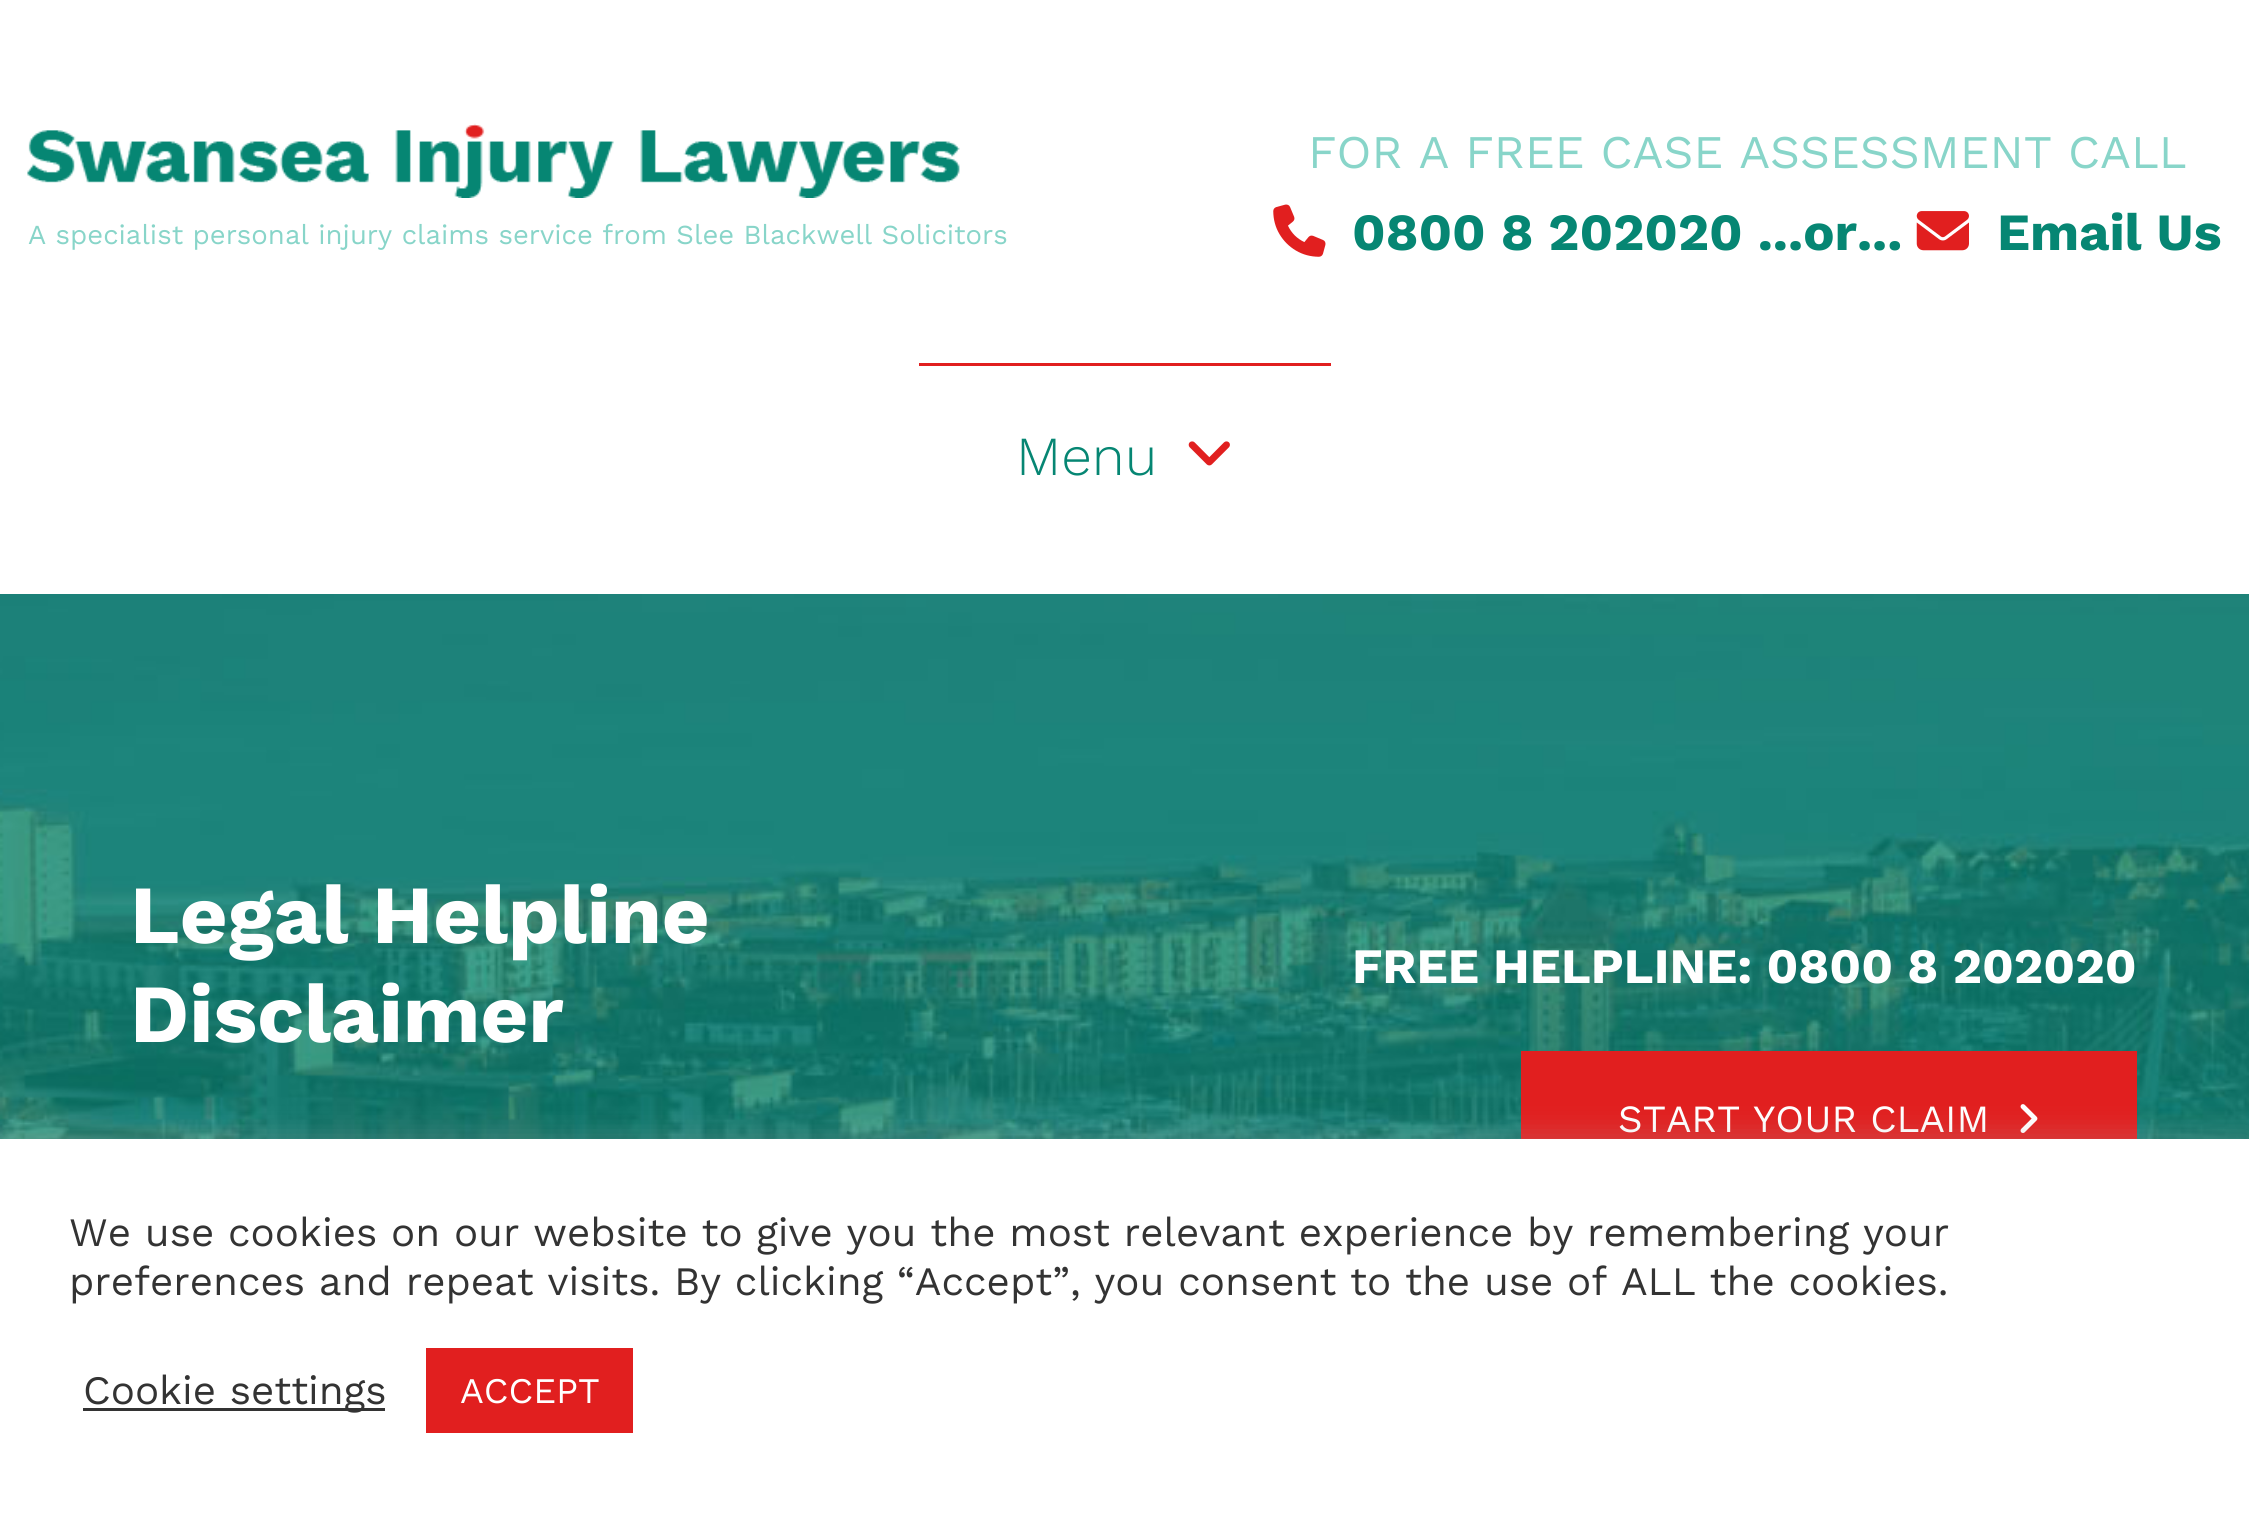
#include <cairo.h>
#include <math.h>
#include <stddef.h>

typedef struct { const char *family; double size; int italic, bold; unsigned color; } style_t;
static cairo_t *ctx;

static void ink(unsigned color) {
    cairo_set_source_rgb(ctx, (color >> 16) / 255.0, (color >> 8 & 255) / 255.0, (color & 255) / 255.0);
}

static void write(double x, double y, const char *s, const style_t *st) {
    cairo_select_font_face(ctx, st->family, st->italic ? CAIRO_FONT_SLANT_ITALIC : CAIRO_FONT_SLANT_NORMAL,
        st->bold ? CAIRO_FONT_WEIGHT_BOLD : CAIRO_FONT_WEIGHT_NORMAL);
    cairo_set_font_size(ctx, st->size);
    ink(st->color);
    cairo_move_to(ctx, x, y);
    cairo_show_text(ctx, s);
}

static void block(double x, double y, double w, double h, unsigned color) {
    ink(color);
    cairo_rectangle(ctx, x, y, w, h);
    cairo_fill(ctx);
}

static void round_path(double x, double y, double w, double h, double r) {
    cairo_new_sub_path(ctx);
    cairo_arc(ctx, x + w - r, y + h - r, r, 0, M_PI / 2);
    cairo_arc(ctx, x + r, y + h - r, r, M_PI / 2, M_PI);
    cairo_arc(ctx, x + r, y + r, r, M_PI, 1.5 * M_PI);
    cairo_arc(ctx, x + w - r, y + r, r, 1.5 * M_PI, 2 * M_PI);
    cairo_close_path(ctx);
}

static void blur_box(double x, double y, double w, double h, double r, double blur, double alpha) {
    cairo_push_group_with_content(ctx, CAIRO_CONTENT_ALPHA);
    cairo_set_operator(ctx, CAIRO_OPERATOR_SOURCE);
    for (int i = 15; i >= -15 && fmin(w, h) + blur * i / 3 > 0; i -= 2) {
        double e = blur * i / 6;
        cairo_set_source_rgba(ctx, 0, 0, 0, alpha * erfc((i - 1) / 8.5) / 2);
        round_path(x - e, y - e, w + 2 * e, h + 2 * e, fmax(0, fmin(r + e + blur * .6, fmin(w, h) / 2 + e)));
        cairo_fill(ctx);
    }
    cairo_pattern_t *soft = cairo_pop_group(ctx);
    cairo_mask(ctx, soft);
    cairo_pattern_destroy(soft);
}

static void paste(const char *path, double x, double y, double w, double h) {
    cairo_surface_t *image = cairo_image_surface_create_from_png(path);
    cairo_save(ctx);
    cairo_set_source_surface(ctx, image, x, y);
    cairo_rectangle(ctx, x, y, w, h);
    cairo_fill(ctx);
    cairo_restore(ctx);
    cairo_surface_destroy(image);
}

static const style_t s1 = {"Work Sans", 27.5, 0, 0, 0x88d5c9};
static const style_t s2 = {"Work Sans", 46.75, 0, 0, 0x88d5c9};
static const style_t s3 = {"Work Sans", 52.25, 0, 1, 0x068673};
static const style_t s4 = {"Work Sans Light", 55, 0, 0, 0x068673};
static const style_t s5 = {"Work Sans", 82.5, 0, 1, 0xffffff};
static const style_t s6 = {"Work Sans", 49.5, 0, 1, 0xffffff};
static const style_t s7 = {"Work Sans", 38.5, 0, 0, 0xffffff};
static const style_t s8 = {"Work Sans", 40.35, 0, 0, 0x333333};
static const style_t s9 = {"Work Sans", 36, 0, 0, 0xffffff};

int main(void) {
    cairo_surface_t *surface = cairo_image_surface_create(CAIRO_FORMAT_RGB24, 2249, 1515);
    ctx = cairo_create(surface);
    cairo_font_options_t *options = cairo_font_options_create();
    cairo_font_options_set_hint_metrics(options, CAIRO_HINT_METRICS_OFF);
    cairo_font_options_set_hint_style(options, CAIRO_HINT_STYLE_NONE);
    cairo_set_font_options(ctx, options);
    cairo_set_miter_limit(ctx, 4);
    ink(0xffffff);
    cairo_paint(ctx);
    paste("pic1.png", 27, 123, 933, 75);
    write(28, 244, "A specialist personal injury claims service from Slee Blackwell Solicitors", &s1);
    write(1308, 168, "FOR A FREE CASE ASSESSMENT CALL", &s2);
    paste("pic2.png", 1273, 204, 53, 53);
    write(1352, 250, "0800 8 202020 ...or...", &s3);
    paste("pic3.png", 1916, 211, 53, 40);
    write(1997, 250, "Email Us", &s3);
    block(919, 363, 412, 3, 0xe11f1f);
    write(1016, 475, "Menu", &s4);
    paste("pic4.png", 1188, 441, 42, 25);
    paste("pic5.png", 0, 594, 2249, 545);
    write(130, 943, "Legal Helpline", &s5);
    write(130, 1042, "Disclaimer", &s5);
    write(1352, 983, "FREE HELPLINE: 0800 8 202020", &s6);
    block(1521, 1051, 616, 88, 0xe11f1f);
    write(1618, 1132, "START YOUR CLAIM", &s7);
    paste("pic6.png", 2020, 1104, 18, 29);
    ink(0xacabab);
    blur_box(0, 1136, 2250, 377, 0, 14, 0.3);
    block(0, 1139, 2249, 376, 0xffffff);
    write(69, 1246, "We use cookies on our website to give you the most relevant experience by remembering your", &s8);
    write(69, 1295, "preferences and repeat visits. By clicking “Accept”, you consent to the use of ALL the cookies.", &s8);
    block(83, 1408, 302, 3, 0x333333);
    write(83, 1404, "Cookie settings", &s8);
    block(426, 1348, 207, 85, 0xe11f1f);
    write(460, 1403, "ACCEPT", &s9);
    cairo_surface_write_to_png(surface, "screenshot.png");
    cairo_font_options_destroy(options);
    cairo_destroy(ctx);
    cairo_surface_destroy(surface);
    return 0;
}
